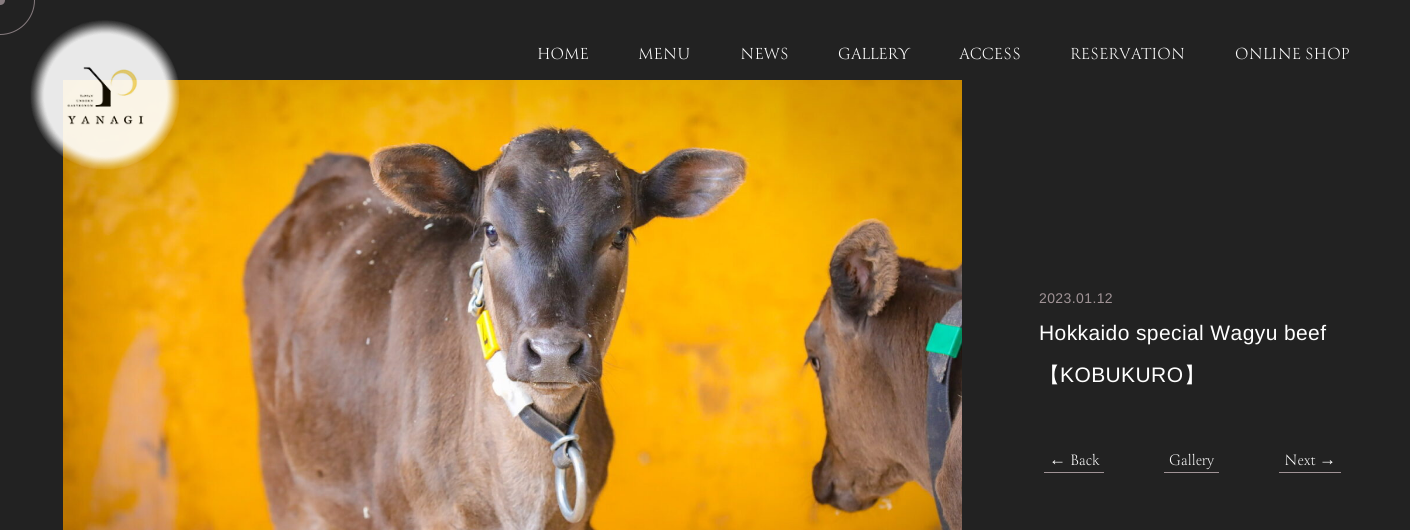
#include <cairo.h>
#include <math.h>
#include <stddef.h>

typedef struct { const char *family; double size; int italic, bold; unsigned color; } style_t;
static cairo_t *ctx;

static void ink(unsigned color) {
    cairo_set_source_rgb(ctx, (color >> 16) / 255.0, (color >> 8 & 255) / 255.0, (color & 255) / 255.0);
}

static void write(double x, double y, const char *s, const style_t *st) {
    cairo_select_font_face(ctx, st->family, st->italic ? CAIRO_FONT_SLANT_ITALIC : CAIRO_FONT_SLANT_NORMAL,
        st->bold ? CAIRO_FONT_WEIGHT_BOLD : CAIRO_FONT_WEIGHT_NORMAL);
    cairo_set_font_size(ctx, st->size);
    ink(st->color);
    cairo_move_to(ctx, x, y);
    cairo_show_text(ctx, s);
}

static void write_spaced(double x, double y, const char *s, double letter, double word) {
    cairo_move_to(ctx, x, y);
    while (*s) {
        char ch[5] = {0};
        int n = 0;
        do ch[n++] = *s++; while ((*s & 0xC0) == 0x80);
        cairo_show_text(ctx, ch);
        cairo_rel_move_to(ctx, letter + word * (*ch == ' '), 0);
    }
}

static void block(double x, double y, double w, double h, unsigned color) {
    ink(color);
    cairo_rectangle(ctx, x, y, w, h);
    cairo_fill(ctx);
}

static void paste(const char *path, double x, double y, double w, double h) {
    cairo_surface_t *image = cairo_image_surface_create_from_png(path);
    cairo_save(ctx);
    cairo_set_source_surface(ctx, image, x, y);
    cairo_rectangle(ctx, x, y, w, h);
    cairo_fill(ctx);
    cairo_restore(ctx);
    cairo_surface_destroy(image);
}

static const style_t s1 = {"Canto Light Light", 18, 0, 0, 0xffffff};
static const style_t s2 = {"Liberation Serif", 17, 0, 0, 0xffffff};
static const style_t s3 = {"Canto Light Light", 17, 0, 0, 0xffffff};

int main(void) {
    cairo_surface_t *surface = cairo_image_surface_create(CAIRO_FORMAT_RGB24, 1410, 530);
    ctx = cairo_create(surface);
    cairo_font_options_t *options = cairo_font_options_create();
    cairo_font_options_set_hint_metrics(options, CAIRO_HINT_METRICS_OFF);
    cairo_font_options_set_hint_style(options, CAIRO_HINT_STYLE_NONE);
    cairo_set_font_options(ctx, options);
    cairo_set_miter_limit(ctx, 4);
    ink(0x222222);
    cairo_paint(ctx);
    paste("pic2.png", 63, 80, 899, 450);
    paste("pic1.png", 30, 20, 150, 150);
    cairo_arc(ctx, 0, 0, 34.5, 0, 2 * M_PI);
    ink(0x877c7f);
    cairo_set_line_width(ctx, 1);
    cairo_stroke(ctx);
    cairo_new_path(ctx);
    cairo_move_to(ctx, 0, 0);
    cairo_line_to(ctx, 5, 0);
    cairo_curve_to(ctx, 5, 3, 3, 5, 0, 5);
    cairo_close_path(ctx);
    cairo_fill(ctx);
    write(537, 59, "HOME", &s1);
    write(638, 59, "MENU", &s1);
    write(740, 59, "NEWS", &s1);
    write(838, 59, "GALLERY", &s1);
    write(959, 59, "ACCESS", &s1);
    write(1070, 59, "RESERVATION", &s1);
    write(1235, 59, "ONLINE SHOP", &s1);
    cairo_select_font_face(ctx, "Liberation Sans", CAIRO_FONT_SLANT_NORMAL, CAIRO_FONT_WEIGHT_NORMAL);
    cairo_set_font_size(ctx, 14);
    ink(0xa09396);
    write_spaced(1039, 303, "2023.01.12", 0.4, 0);
    cairo_set_font_size(ctx, 21);
    ink(0xffffff);
    write_spaced(1039, 340, "Hokkaido special Wagyu beef", 0.4, 0);
    cairo_select_font_face(ctx, "WenQuanYi Zen Hei Medium", CAIRO_FONT_SLANT_NORMAL, CAIRO_FONT_WEIGHT_NORMAL);
    write_spaced(1039, 382, "【", 0.4, 0);
    cairo_select_font_face(ctx, "Liberation Sans", CAIRO_FONT_SLANT_NORMAL, CAIRO_FONT_WEIGHT_NORMAL);
    write_spaced(1060, 382, "KOBUKURO", 0.4, 0);
    cairo_select_font_face(ctx, "WenQuanYi Zen Hei Medium", CAIRO_FONT_SLANT_NORMAL, CAIRO_FONT_WEIGHT_NORMAL);
    write_spaced(1184, 382, "】", 0.4, 0);
    write(1049, 465, "←", &s2);
    block(1044, 472, 60, 1, 0xa09396);
    write(1070, 465, "Back", &s3);
    write(1169, 465, "Gallery", &s3);
    block(1164, 472, 55, 1, 0xa09396);
    write(1284, 465, "Next", &s3);
    write(1319, 465, "→", &s2);
    block(1279, 472, 62, 1, 0xa09396);
    cairo_surface_write_to_png(surface, "screenshot.png");
    cairo_font_options_destroy(options);
    cairo_destroy(ctx);
    cairo_surface_destroy(surface);
    return 0;
}
